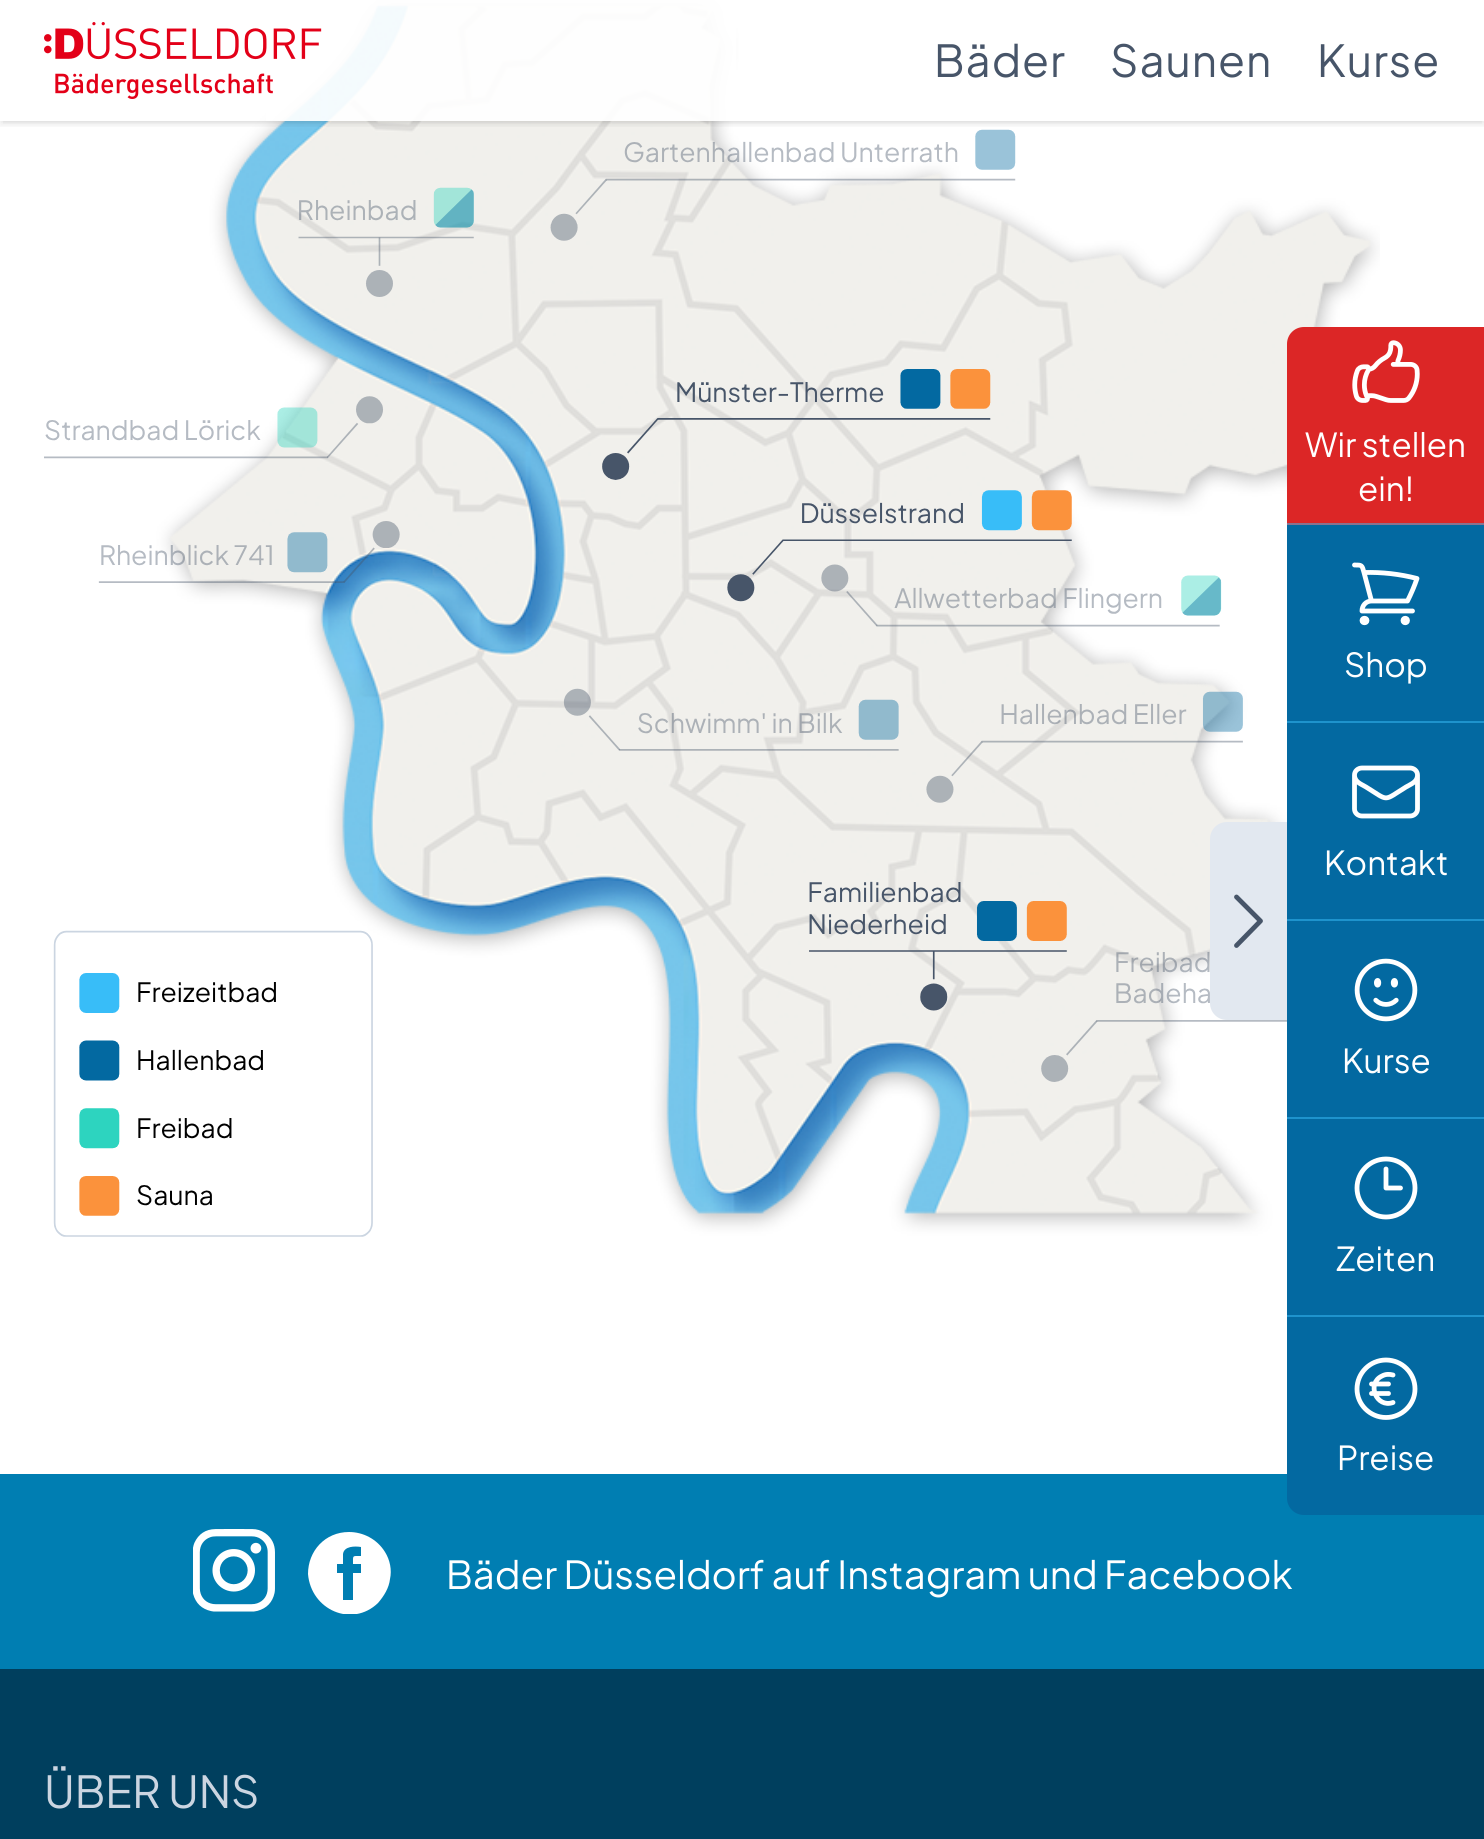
#include <cairo.h>
#include <math.h>
#include <stddef.h>

typedef struct { const char *family; double size; int italic, bold; unsigned color; } style_t;
static cairo_t *ctx;

static void ink(unsigned color) {
    cairo_set_source_rgb(ctx, (color >> 16) / 255.0, (color >> 8 & 255) / 255.0, (color & 255) / 255.0);
}

static void write(double x, double y, const char *s, const style_t *st) {
    cairo_select_font_face(ctx, st->family, st->italic ? CAIRO_FONT_SLANT_ITALIC : CAIRO_FONT_SLANT_NORMAL,
        st->bold ? CAIRO_FONT_WEIGHT_BOLD : CAIRO_FONT_WEIGHT_NORMAL);
    cairo_set_font_size(ctx, st->size);
    ink(st->color);
    cairo_move_to(ctx, x, y);
    cairo_show_text(ctx, s);
}

static void write_spaced(double x, double y, const char *s, double letter, double word) {
    cairo_move_to(ctx, x, y);
    while (*s) {
        char ch[5] = {0};
        int n = 0;
        do ch[n++] = *s++; while ((*s & 0xC0) == 0x80);
        cairo_show_text(ctx, ch);
        cairo_rel_move_to(ctx, letter + word * (*ch == ' '), 0);
    }
}

static void block(double x, double y, double w, double h, unsigned color) {
    ink(color);
    cairo_rectangle(ctx, x, y, w, h);
    cairo_fill(ctx);
}

static void round_path(double x, double y, double w, double h, double r) {
    cairo_new_sub_path(ctx);
    cairo_arc(ctx, x + w - r, y + h - r, r, 0, M_PI / 2);
    cairo_arc(ctx, x + r, y + h - r, r, M_PI / 2, M_PI);
    cairo_arc(ctx, x + r, y + r, r, M_PI, 1.5 * M_PI);
    cairo_arc(ctx, x + w - r, y + r, r, 1.5 * M_PI, 2 * M_PI);
    cairo_close_path(ctx);
}

static void blur_box(double x, double y, double w, double h, double r, double blur, double alpha) {
    cairo_push_group_with_content(ctx, CAIRO_CONTENT_ALPHA);
    cairo_set_operator(ctx, CAIRO_OPERATOR_SOURCE);
    for (int i = 15; i >= -15 && fmin(w, h) + blur * i / 3 > 0; i -= 2) {
        double e = blur * i / 6;
        cairo_set_source_rgba(ctx, 0, 0, 0, alpha * erfc((i - 1) / 8.5) / 2);
        round_path(x - e, y - e, w + 2 * e, h + 2 * e, fmax(0, fmin(r + e + blur * .6, fmin(w, h) / 2 + e)));
        cairo_fill(ctx);
    }
    cairo_pattern_t *soft = cairo_pop_group(ctx);
    cairo_mask(ctx, soft);
    cairo_pattern_destroy(soft);
}

static void paste(const char *path, double x, double y, double w, double h) {
    cairo_surface_t *image = cairo_image_surface_create_from_png(path);
    cairo_save(ctx);
    cairo_set_source_surface(ctx, image, x, y);
    cairo_rectangle(ctx, x, y, w, h);
    cairo_fill(ctx);
    cairo_restore(ctx);
    cairo_surface_destroy(image);
}

static const style_t s1 = {"Plus Jakarta Sans", 33, 0, 0, 0xffffff};
static const style_t s2 = {"Plus Jakarta Sans", 38.5, 0, 0, 0xffffff};
static const style_t s3 = {"Plus Jakarta Sans", 44, 0, 0, 0xcbd5e1};

int main(void) {
    cairo_surface_t *surface = cairo_image_surface_create(CAIRO_FORMAT_RGB24, 1484, 1839);
    ctx = cairo_create(surface);
    cairo_font_options_t *options = cairo_font_options_create();
    cairo_font_options_set_hint_metrics(options, CAIRO_HINT_METRICS_OFF);
    cairo_font_options_set_hint_style(options, CAIRO_HINT_STYLE_NONE);
    cairo_set_font_options(ctx, options);
    cairo_set_miter_limit(ctx, 4);
    ink(0xffffff);
    cairo_paint(ctx);
    paste("pic1.png", 44, 0, 1336, 1237);
    cairo_set_source_rgba(ctx, 1, 1, 1, 0.92);
    cairo_rectangle(ctx, 266, 0, 470, 121);
    cairo_fill(ctx);
    cairo_save(ctx);
    cairo_rectangle(ctx, 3, 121, 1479, 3);
    cairo_clip(ctx);
    ink(0x000000);
    blur_box(3, 6, 1479, 115, 0, 3, 0.1);
    cairo_restore(ctx);
    cairo_save(ctx);
    cairo_rectangle(ctx, 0, 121, 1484, 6);
    cairo_clip(ctx);
    ink(0x000000);
    blur_box(0, 3, 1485, 121, 0, 4, 0.1);
    cairo_restore(ctx);
    paste("pic2.png", 44, 22, 278, 77);
    cairo_select_font_face(ctx, "Plus Jakarta Sans", CAIRO_FONT_SLANT_NORMAL, CAIRO_FONT_WEIGHT_NORMAL);
    cairo_set_font_size(ctx, 44);
    ink(0x475569);
    write_spaced(934, 77, "Bäder", 1, 0);
    write_spaced(1110, 77, "Saunen", 1, 0);
    write_spaced(1317, 77, "Kurse", 1, 0);
    ink(0xe2e8f0);
    cairo_new_path(ctx);
    cairo_move_to(ctx, 1227, 822);
    cairo_line_to(ctx, 1287, 822);
    cairo_line_to(ctx, 1287, 1020);
    cairo_line_to(ctx, 1227, 1020);
    cairo_curve_to(ctx, 1217.5, 1020, 1210, 1012.5, 1210, 1003);
    cairo_line_to(ctx, 1210, 839);
    cairo_curve_to(ctx, 1210, 829.5, 1217.5, 822, 1227, 822);
    cairo_close_path(ctx);
    cairo_fill(ctx);
    cairo_new_path(ctx);
    cairo_move_to(ctx, 1236.5, 897);
    cairo_line_to(ctx, 1260.5, 921);
    cairo_line_to(ctx, 1236.5, 945.5);
    ink(0x475569);
    cairo_set_line_width(ctx, 4.8);
    cairo_set_line_cap(ctx, CAIRO_LINE_CAP_ROUND);
    cairo_set_line_join(ctx, CAIRO_LINE_JOIN_ROUND);
    cairo_stroke(ctx);
    ink(0xdc2626);
    cairo_new_path(ctx);
    cairo_move_to(ctx, 1304, 327);
    cairo_line_to(ctx, 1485, 327);
    cairo_line_to(ctx, 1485, 525);
    cairo_line_to(ctx, 1287, 525);
    cairo_line_to(ctx, 1287, 344);
    cairo_curve_to(ctx, 1287, 334.5, 1294.5, 327, 1304, 327);
    cairo_close_path(ctx);
    cairo_fill(ctx);
    block(1287, 523, 197, 2, 0x8a728f);
    paste("pic3.png", 1352, 340, 68, 63);
    write(1305, 457, "Wir stellen", &s1);
    write(1358, 501, "ein!", &s1);
    block(1287, 525, 197, 196, 0x0369a1);
    block(1287, 721, 197, 2, 0x1e93cd);
    cairo_new_path(ctx);
    cairo_move_to(ctx, 1354.5, 565);
    cairo_curve_to(ctx, 1362, 565, 1362, 565, 1364, 572.5);
    cairo_move_to(ctx, 1371.5, 601);
    cairo_curve_to(ctx, 1366, 601, 1362, 605.5, 1362, 611);
    cairo_line_to(ctx, 1412.5, 611);
    cairo_move_to(ctx, 1371.5, 601);
    cairo_line_to(ctx, 1407.5, 601);
    cairo_curve_to(ctx, 1411, 594, 1414.5, 586, 1417, 578.5);
    cairo_curve_to(ctx, 1399.5, 574, 1382, 572, 1364, 572.5);
    cairo_move_to(ctx, 1371.5, 601);
    cairo_line_to(ctx, 1364, 572.5);
    cairo_move_to(ctx, 1367, 620.5);
    cairo_curve_to(ctx, 1367, 623.5, 1362, 623.5, 1362, 620.5);
    cairo_curve_to(ctx, 1362, 617.5, 1367, 617.5, 1367, 620.5);
    cairo_close_path(ctx);
    cairo_move_to(ctx, 1407.5, 620.5);
    cairo_curve_to(ctx, 1407.5, 623.5, 1403, 623.5, 1403, 620.5);
    cairo_curve_to(ctx, 1403, 617.5, 1407.5, 617.5, 1407.5, 620.5);
    cairo_close_path(ctx);
    ink(0xffffff);
    cairo_stroke(ctx);
    write(1344, 677, "Shop", &s1);
    block(1287, 723, 197, 196, 0x0369a1);
    block(1287, 919, 197, 2, 0x1e93cd);
    cairo_new_path(ctx);
    cairo_move_to(ctx, 1417.5, 775);
    cairo_line_to(ctx, 1417.5, 809);
    cairo_curve_to(ctx, 1417.5, 813, 1414, 816, 1410, 816);
    cairo_line_to(ctx, 1362, 816);
    cairo_curve_to(ctx, 1358, 816, 1354.5, 813, 1354.5, 809);
    cairo_line_to(ctx, 1354.5, 775);
    cairo_move_to(ctx, 1417.5, 775);
    cairo_curve_to(ctx, 1417.5, 771, 1414, 768, 1410, 768);
    cairo_line_to(ctx, 1362, 768);
    cairo_curve_to(ctx, 1358, 768, 1354.5, 771, 1354.5, 775);
    cairo_move_to(ctx, 1417.5, 775);
    cairo_curve_to(ctx, 1417.5, 782, 1411, 784, 1406, 787);
    cairo_curve_to(ctx, 1382.5, 801.5, 1389.5, 801.5, 1366, 787);
    cairo_curve_to(ctx, 1361, 784, 1354.5, 782, 1354.5, 775);
    ink(0xffffff);
    cairo_stroke(ctx);
    write(1324, 875, "Kontakt", &s1);
    block(1287, 921, 197, 196, 0x0369a1);
    block(1287, 1117, 197, 2, 0x1e93cd);
    paste("pic4.png", 1354, 958, 64, 64);
    write(1342, 1073, "Kurse", &s1);
    block(1287, 1119, 197, 196, 0x0369a1);
    block(1287, 1315, 197, 2, 0x1e93cd);
    cairo_new_path(ctx);
    cairo_move_to(ctx, 1386, 1169);
    cairo_line_to(ctx, 1386, 1188);
    cairo_line_to(ctx, 1400.5, 1188);
    cairo_move_to(ctx, 1415, 1188);
    cairo_curve_to(ctx, 1415, 1204, 1402, 1217, 1386, 1217);
    cairo_curve_to(ctx, 1370, 1217, 1357, 1204, 1357, 1188);
    cairo_curve_to(ctx, 1357, 1172, 1370, 1159, 1386, 1159);
    cairo_curve_to(ctx, 1402, 1159, 1415, 1172, 1415, 1188);
    cairo_close_path(ctx);
    ink(0xffffff);
    cairo_stroke(ctx);
    write(1336, 1271, "Zeiten", &s1);
    block(0, 1474, 1484, 195, 0x007eb2);
    ink(0x0369a1);
    cairo_new_path(ctx);
    cairo_move_to(ctx, 1287, 1317);
    cairo_line_to(ctx, 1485, 1317);
    cairo_line_to(ctx, 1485, 1515);
    cairo_line_to(ctx, 1304, 1515);
    cairo_curve_to(ctx, 1294.5, 1515, 1287, 1507.5, 1287, 1498);
    cairo_close_path(ctx);
    cairo_fill(ctx);
    cairo_new_path(ctx);
    cairo_move_to(ctx, 1393, 1375);
    cairo_curve_to(ctx, 1389.5, 1374, 1385.5, 1374, 1382, 1376);
    cairo_curve_to(ctx, 1366, 1383.5, 1376.5, 1408.5, 1393, 1402.5);
    cairo_move_to(ctx, 1371.5, 1384);
    cairo_line_to(ctx, 1388.5, 1384);
    cairo_move_to(ctx, 1371.5, 1393.5);
    cairo_line_to(ctx, 1388.5, 1393.5);
    cairo_move_to(ctx, 1415, 1389);
    cairo_curve_to(ctx, 1415, 1404.5, 1402, 1417.5, 1386, 1417.5);
    cairo_curve_to(ctx, 1370, 1417.5, 1357, 1404.5, 1357, 1389);
    cairo_curve_to(ctx, 1357, 1373, 1370, 1360, 1386, 1360);
    cairo_curve_to(ctx, 1402, 1360, 1415, 1373, 1415, 1389);
    cairo_close_path(ctx);
    ink(0xffffff);
    cairo_stroke(ctx);
    write(1337, 1470, "Preise", &s1);
    paste("pic5.png", 193, 1529, 82, 83);
    cairo_save(ctx);
    cairo_rectangle(ctx, 308, 1532, 83, 82);
    cairo_clip(ctx);
    cairo_new_path(ctx);
    cairo_move_to(ctx, 308, 1574);
    cairo_curve_to(ctx, 308, 1551, 325, 1532, 349, 1532);
    cairo_curve_to(ctx, 363, 1532, 377, 1539, 385, 1552);
    cairo_curve_to(ctx, 390, 1560, 392, 1570, 390, 1579);
    cairo_curve_to(ctx, 389, 1588, 384, 1596, 378, 1603);
    cairo_curve_to(ctx, 352, 1628, 311, 1610, 308, 1574);
    cairo_close_path(ctx);
    cairo_move_to(ctx, 343, 1600);
    cairo_line_to(ctx, 353, 1600);
    cairo_line_to(ctx, 353, 1573);
    cairo_line_to(ctx, 361, 1573);
    cairo_line_to(ctx, 361, 1564);
    cairo_line_to(ctx, 353, 1564);
    cairo_curve_to(ctx, 353, 1555, 352, 1556, 361, 1556);
    cairo_line_to(ctx, 361, 1547);
    cairo_curve_to(ctx, 355, 1546, 344, 1546, 343, 1554);
    cairo_line_to(ctx, 343, 1564);
    cairo_line_to(ctx, 337, 1564);
    cairo_line_to(ctx, 337, 1573);
    cairo_line_to(ctx, 343, 1573);
    cairo_close_path(ctx);
    cairo_fill(ctx);
    cairo_restore(ctx);
    write(446, 1589, "Bäder Düsseldorf auf Instagram und Facebook", &s2);
    block(0, 1669, 1484, 170, 0x003f5e);
    write(44, 1808, "ÜBER UNS", &s3);
    cairo_surface_write_to_png(surface, "screenshot.png");
    cairo_font_options_destroy(options);
    cairo_destroy(ctx);
    cairo_surface_destroy(surface);
    return 0;
}
